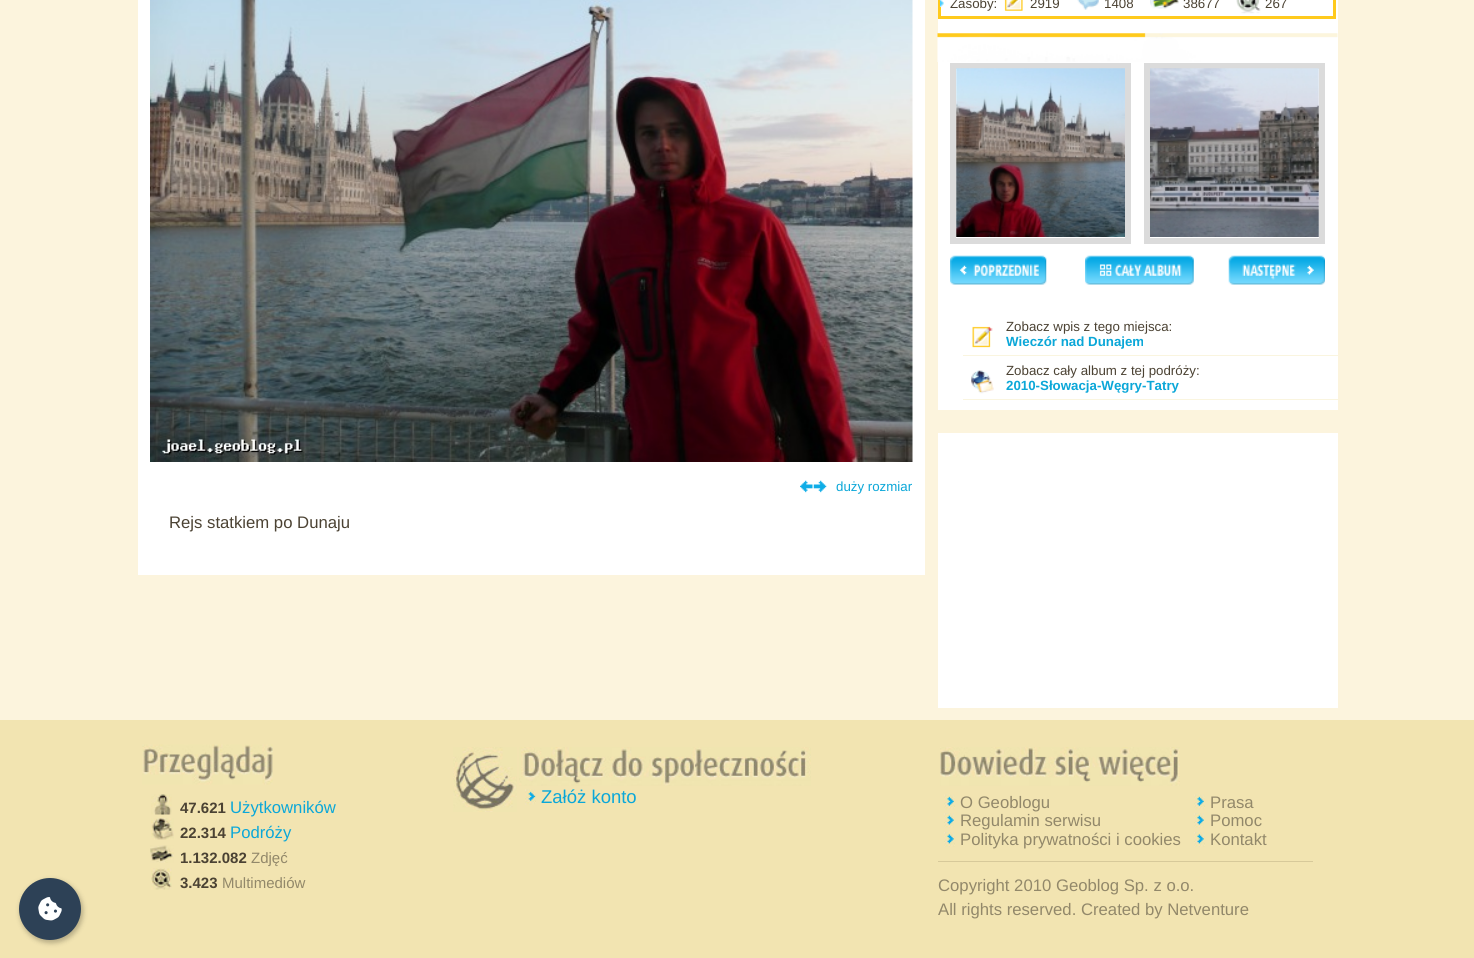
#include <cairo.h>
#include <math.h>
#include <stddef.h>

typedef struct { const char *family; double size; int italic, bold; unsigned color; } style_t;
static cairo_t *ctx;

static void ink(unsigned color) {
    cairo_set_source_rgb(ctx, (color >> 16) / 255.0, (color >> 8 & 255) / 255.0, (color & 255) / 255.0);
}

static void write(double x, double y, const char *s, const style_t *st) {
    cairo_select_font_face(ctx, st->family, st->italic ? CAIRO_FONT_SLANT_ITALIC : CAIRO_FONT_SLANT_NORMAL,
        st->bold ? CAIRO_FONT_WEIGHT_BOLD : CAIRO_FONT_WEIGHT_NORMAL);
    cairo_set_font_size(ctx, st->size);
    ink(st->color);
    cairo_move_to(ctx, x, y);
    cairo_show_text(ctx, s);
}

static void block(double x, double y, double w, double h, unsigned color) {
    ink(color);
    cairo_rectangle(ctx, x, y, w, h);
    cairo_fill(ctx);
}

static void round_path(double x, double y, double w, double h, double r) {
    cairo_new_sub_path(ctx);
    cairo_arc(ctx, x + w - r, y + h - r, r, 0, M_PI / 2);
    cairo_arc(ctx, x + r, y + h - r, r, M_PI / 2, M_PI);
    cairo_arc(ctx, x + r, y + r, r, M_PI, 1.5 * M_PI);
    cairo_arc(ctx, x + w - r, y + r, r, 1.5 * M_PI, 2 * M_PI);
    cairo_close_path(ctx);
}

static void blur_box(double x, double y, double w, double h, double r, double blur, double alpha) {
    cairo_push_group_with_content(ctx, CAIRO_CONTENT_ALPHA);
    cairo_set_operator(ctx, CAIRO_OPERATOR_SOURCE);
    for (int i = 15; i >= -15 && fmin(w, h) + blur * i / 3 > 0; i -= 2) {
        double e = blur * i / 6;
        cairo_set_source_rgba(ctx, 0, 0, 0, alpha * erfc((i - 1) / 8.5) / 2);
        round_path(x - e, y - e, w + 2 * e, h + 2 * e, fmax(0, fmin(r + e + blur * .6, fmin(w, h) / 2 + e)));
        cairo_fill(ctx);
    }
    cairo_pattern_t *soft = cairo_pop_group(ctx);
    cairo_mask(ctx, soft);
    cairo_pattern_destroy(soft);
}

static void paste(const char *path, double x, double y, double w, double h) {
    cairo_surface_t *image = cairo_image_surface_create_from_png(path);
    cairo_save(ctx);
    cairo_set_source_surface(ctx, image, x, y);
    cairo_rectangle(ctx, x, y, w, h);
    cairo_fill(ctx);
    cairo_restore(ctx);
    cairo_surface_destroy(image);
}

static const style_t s1 = {"Liberation Sans", 13.3, 0, 0, 0x4b4233};
static const style_t s2 = {"Liberation Sans", 13.3, 0, 1, 0x0ba7d8};
static const style_t s3 = {"Liberation Sans", 13.3, 0, 0, 0x0ba7d8};
static const style_t s4 = {"Liberation Sans", 16.7, 0, 0, 0x4b4233};
static const style_t s5 = {"Liberation Sans", 18.5, 0, 0, 0x0ba7d8};
static const style_t s6 = {"Liberation Sans", 15, 0, 1, 0x4b4233};
static const style_t s7 = {"Liberation Sans", 16.7, 0, 0, 0x0ba7d8};
static const style_t s8 = {"Liberation Sans", 15, 0, 0, 0x92886a};
static const style_t s9 = {"Liberation Sans", 16.7, 0, 0, 0x92886a};

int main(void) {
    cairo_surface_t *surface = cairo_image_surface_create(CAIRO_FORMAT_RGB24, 1474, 958);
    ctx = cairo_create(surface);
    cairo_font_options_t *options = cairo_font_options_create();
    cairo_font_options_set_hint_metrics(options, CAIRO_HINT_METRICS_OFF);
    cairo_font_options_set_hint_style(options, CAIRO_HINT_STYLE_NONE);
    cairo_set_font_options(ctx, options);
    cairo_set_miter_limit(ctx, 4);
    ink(0xfcf4dd);
    cairo_paint(ctx);
    block(938, 0, 400, 410, 0xffffff);
    cairo_rectangle(ctx, 939.5, -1.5, 395, 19);
    ink(0xffca1c);
    cairo_set_line_width(ctx, 3);
    cairo_stroke(ctx);
    paste("pic1.png", 940, 0, 4, 7);
    write(950, 8, "Zasoby:", &s1);
    paste("pic2.png", 1004, 0, 19, 11);
    write(1030, 8, "2919", &s1);
    paste("pic3.png", 1077, 0, 22, 10);
    write(1104, 8, "1408", &s1);
    paste("pic4.png", 1150, 0, 29, 9);
    write(1183, 8, "38677", &s1);
    paste("pic5.png", 1236, 0, 25, 14);
    write(1265, 8, "267", &s1);
    paste("pic6.png", 937, 33, 401, 29);
    cairo_rectangle(ctx, 953, 66, 175, 175);
    ink(0xdbdbdb);
    cairo_set_line_width(ctx, 6);
    cairo_stroke(ctx);
    paste("pic7.png", 956, 68, 169, 169);
    cairo_rectangle(ctx, 1147, 66, 175, 175);
    cairo_stroke(ctx);
    paste("pic8.png", 1150, 68, 169, 169);
    paste("pic9.png", 950, 255, 97, 30);
    paste("pic10.png", 1085, 255, 109, 30);
    paste("pic11.png", 1228, 255, 97, 30);
    block(963, 355, 375, 1, 0xfaf5df);
    paste("pic12.png", 972, 326, 21, 22);
    write(1006, 331, "Zobacz wpis z tego miejsca:", &s1);
    write(1006, 346, "Wieczór nad Dunajem", &s2);
    block(963, 399, 375, 1, 0xfaf5df);
    paste("pic13.png", 971, 370, 23, 24);
    write(1006, 375, "Zobacz cały album z tej podróży:", &s1);
    write(1006, 390, "2010-Słowacja-Węgry-Tatry", &s2);
    block(938, 433, 400, 275, 0xffffff);
    block(138, 0, 787, 575, 0xffffff);
    paste("pic14.png", 150, 0, 763, 462);
    paste("pic15.png", 800, 480, 27, 13);
    write(836, 491, "duży rozmiar", &s3);
    write(169, 528, "Rejs statkiem po Dunaju", &s4);
    block(0, 720, 1474, 238, 0xf2e4b1);
    ink(0x000000);
    blur_box(20, 880, 63, 63, 31.5, 2.5, 0.25);
    ink(0x2d4156);
    cairo_arc(ctx, 50, 909, 31, 0, 2 * M_PI);
    cairo_fill(ctx);
    paste("pic16.png", 38, 897, 24, 24);
    paste("pic17.png", 453, 747, 64, 65);
    paste("pic18.png", 519, 747, 292, 39);
    paste("pic19.png", 525, 789, 11, 16);
    write(541, 803, "Załóż konto", &s5);
    paste("pic20.png", 142, 744, 131, 41);
    paste("pic21.png", 151, 794, 21, 21);
    write(180, 813, "47.621", &s6);
    write(230, 813, "Użytkowników", &s7);
    paste("pic22.png", 151, 818, 23, 22);
    write(180, 838, "22.314", &s6);
    write(230, 838, "Podróży", &s7);
    paste("pic23.png", 150, 845, 24, 18);
    write(180, 863, "1.132.082", &s6);
    write(251, 863, "Zdjęć", &s8);
    paste("pic24.png", 151, 868, 21, 22);
    write(180, 888, "3.423", &s6);
    write(222, 888, "Multimediów", &s8);
    paste("pic25.png", 940, 747, 240, 39);
    block(938, 861, 375, 1, 0xd7c99a);
    paste("pic26.png", 944, 794, 11, 16);
    write(960, 808, "O Geoblogu", &s9);
    paste("pic27.png", 944, 813, 10, 15);
    write(960, 826, "Regulamin serwisu", &s9);
    paste("pic28.png", 944, 832, 11, 15);
    write(960, 845, "Polityka prywatności i cookies", &s9);
    paste("pic29.png", 1194, 794, 11, 16);
    write(1210, 808, "Prasa", &s9);
    paste("pic30.png", 1194, 813, 10, 15);
    write(1210, 826, "Pomoc", &s9);
    paste("pic31.png", 1194, 832, 11, 15);
    write(1210, 845, "Kontakt", &s9);
    write(938, 891, "Copyright 2010 Geoblog Sp. z o.o.", &s9);
    write(938, 915, "All rights reserved. Created by Netventure", &s9);
    cairo_surface_write_to_png(surface, "screenshot.png");
    cairo_font_options_destroy(options);
    cairo_destroy(ctx);
    cairo_surface_destroy(surface);
    return 0;
}
